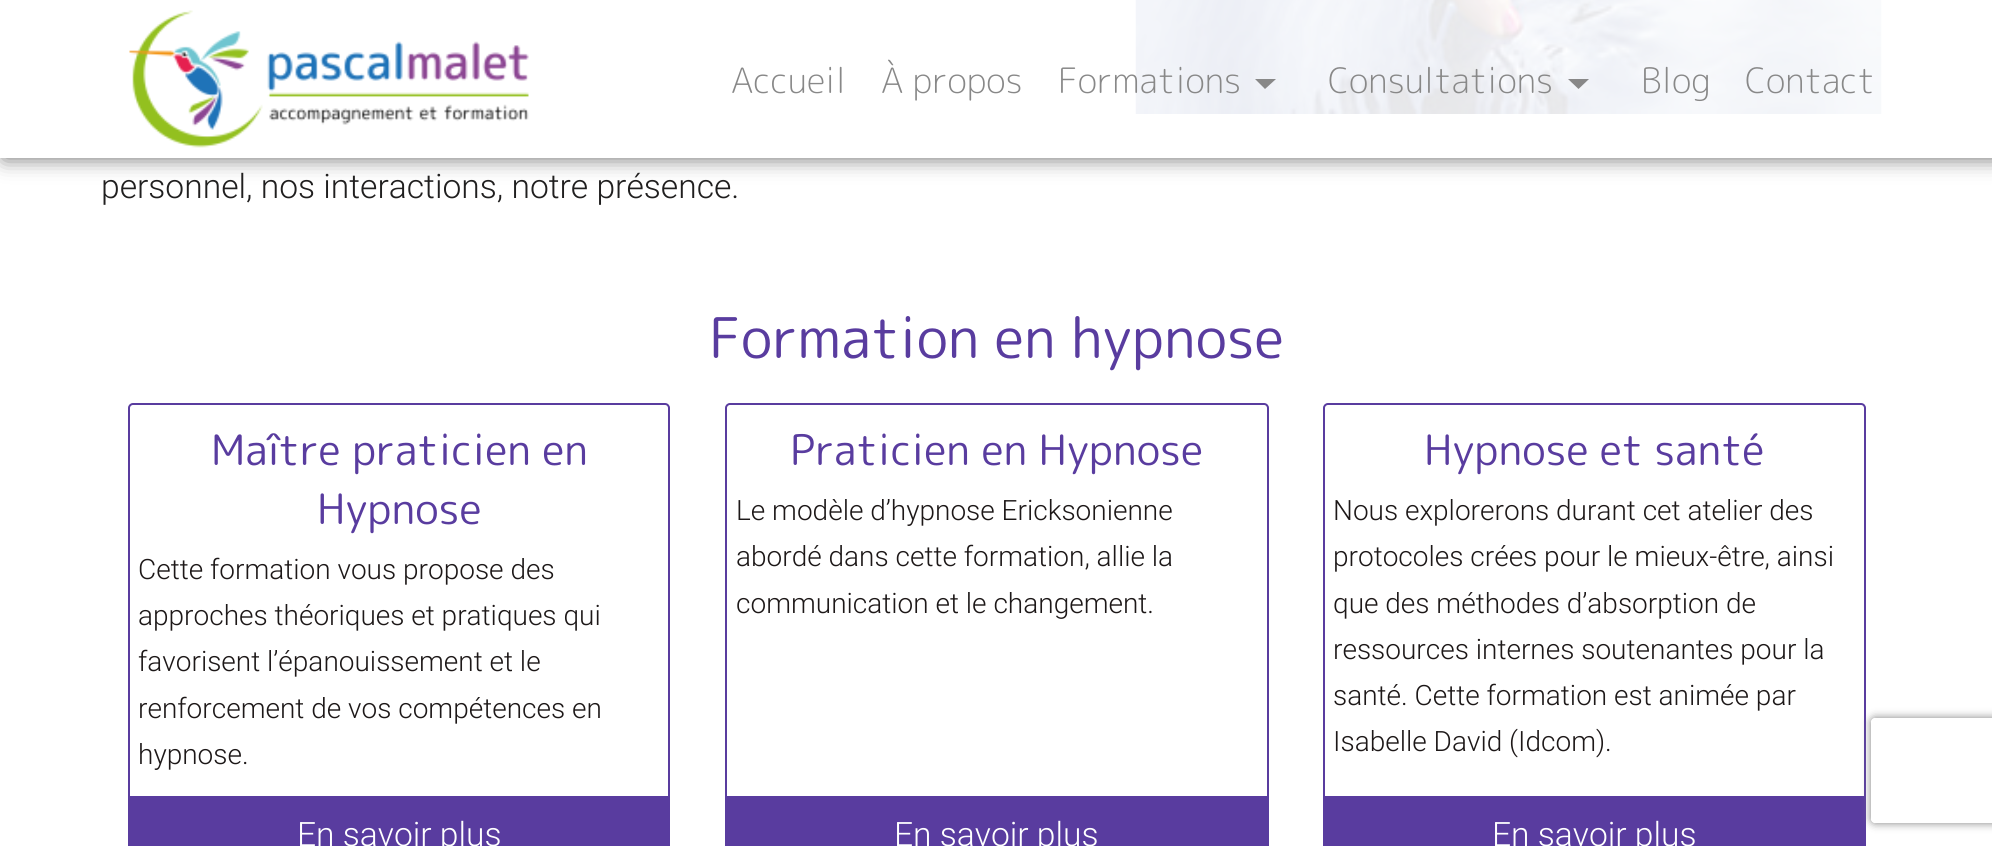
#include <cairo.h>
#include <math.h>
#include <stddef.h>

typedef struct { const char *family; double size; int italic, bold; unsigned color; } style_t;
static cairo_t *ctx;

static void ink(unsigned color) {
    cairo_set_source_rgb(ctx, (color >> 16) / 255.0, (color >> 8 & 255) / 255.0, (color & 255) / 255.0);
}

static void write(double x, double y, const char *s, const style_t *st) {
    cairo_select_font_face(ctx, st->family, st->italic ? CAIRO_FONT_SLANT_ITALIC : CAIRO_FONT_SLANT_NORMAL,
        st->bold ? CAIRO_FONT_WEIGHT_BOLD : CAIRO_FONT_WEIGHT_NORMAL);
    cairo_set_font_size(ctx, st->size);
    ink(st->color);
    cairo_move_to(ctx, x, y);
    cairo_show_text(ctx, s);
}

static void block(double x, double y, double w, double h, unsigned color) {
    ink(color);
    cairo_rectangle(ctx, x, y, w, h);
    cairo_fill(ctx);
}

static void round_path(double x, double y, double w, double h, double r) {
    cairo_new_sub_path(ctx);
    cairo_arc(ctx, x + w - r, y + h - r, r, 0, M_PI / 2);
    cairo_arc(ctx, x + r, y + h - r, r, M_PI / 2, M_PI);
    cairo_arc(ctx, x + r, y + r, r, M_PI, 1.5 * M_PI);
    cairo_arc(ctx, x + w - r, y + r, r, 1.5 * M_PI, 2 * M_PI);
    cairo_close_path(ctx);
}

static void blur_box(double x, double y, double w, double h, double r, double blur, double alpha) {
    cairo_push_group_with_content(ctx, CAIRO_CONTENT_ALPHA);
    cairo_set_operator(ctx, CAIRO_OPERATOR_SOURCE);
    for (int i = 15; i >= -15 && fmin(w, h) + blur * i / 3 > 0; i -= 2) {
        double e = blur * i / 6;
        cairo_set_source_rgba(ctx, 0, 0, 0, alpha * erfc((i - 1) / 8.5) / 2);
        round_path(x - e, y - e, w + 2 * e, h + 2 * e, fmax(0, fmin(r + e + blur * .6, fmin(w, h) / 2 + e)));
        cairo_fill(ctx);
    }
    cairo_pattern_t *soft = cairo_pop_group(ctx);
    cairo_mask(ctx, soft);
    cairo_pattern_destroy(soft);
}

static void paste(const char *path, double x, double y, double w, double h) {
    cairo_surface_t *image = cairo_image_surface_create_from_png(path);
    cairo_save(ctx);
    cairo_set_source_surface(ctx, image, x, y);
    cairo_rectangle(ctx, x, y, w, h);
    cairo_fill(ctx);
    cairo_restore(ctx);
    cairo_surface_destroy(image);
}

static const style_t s1 = {"Rounded Mplus 1c Light", 35, 0, 0, 0x888888};
static const style_t s2 = {"Roboto Light", 33.6, 0, 0, 0x201f1f};
static const style_t s3 = {"Rounded Mplus 1c", 56, 0, 0, 0x593c9f};
static const style_t s4 = {"Rounded Mplus 1c", 42, 0, 0, 0x593c9f};
static const style_t s5 = {"Roboto Light", 28, 0, 0, 0x1d1818};
static const style_t s6 = {"Roboto Light", 33.6, 0, 0, 0xffffff};

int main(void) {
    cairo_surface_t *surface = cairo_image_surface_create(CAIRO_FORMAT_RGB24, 1992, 846);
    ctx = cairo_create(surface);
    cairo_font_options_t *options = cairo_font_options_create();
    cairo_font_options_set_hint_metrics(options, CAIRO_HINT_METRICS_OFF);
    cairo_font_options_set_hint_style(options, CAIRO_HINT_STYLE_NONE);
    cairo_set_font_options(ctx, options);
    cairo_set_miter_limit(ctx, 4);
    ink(0xffffff);
    cairo_paint(ctx);
    paste("pic2.png", 1135, 0, 747, 114);
    cairo_save(ctx);
    cairo_set_fill_rule(ctx, CAIRO_FILL_RULE_EVEN_ODD);
    cairo_new_path(ctx);
    cairo_move_to(ctx, 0, 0);
    cairo_line_to(ctx, 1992, 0);
    cairo_line_to(ctx, 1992, 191);
    cairo_line_to(ctx, 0, 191);
    cairo_close_path(ctx);
    cairo_move_to(ctx, 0, 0);
    cairo_line_to(ctx, 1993, 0);
    cairo_line_to(ctx, 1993, 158);
    cairo_line_to(ctx, 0, 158);
    cairo_close_path(ctx);
    cairo_clip(ctx);
    ink(0x6b6b6b);
    blur_box(4, 0, 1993, 158, 0, 10.5, 1);
    cairo_restore(ctx);
    cairo_set_source_rgba(ctx, 1, 1, 1, 0.9);
    cairo_rectangle(ctx, 0, 0, 1992, 158);
    cairo_fill(ctx);
    paste("pic1.png", 129, 10, 400, 138);
    write(731, 93, "Accueil", &s1);
    write(881, 93, "À propos", &s1);
    write(1058, 93, "Formations", &s1);
    cairo_new_path(ctx);
    cairo_move_to(ctx, 1255, 79);
    cairo_line_to(ctx, 1276, 79);
    cairo_line_to(ctx, 1265, 89);
    cairo_close_path(ctx);
    cairo_fill(ctx);
    write(1328, 93, "Consultations", &s1);
    cairo_new_path(ctx);
    cairo_move_to(ctx, 1568, 79);
    cairo_line_to(ctx, 1589, 79);
    cairo_line_to(ctx, 1578.5, 89);
    cairo_close_path(ctx);
    cairo_fill(ctx);
    write(1641, 93, "Blog", &s1);
    write(1745, 93, "Contact", &s1);
    write(101, 198, "personnel, nos interactions, notre présence.", &s2);
    write(709, 358, "Formation en hypnose", &s3);
    round_path(129, 404, 540, 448, 4);
    cairo_stroke(ctx);
    write(211, 465, "Maître praticien en", &s4);
    write(317, 524, "Hypnose", &s4);
    write(138, 579, "Cette formation vous propose des", &s5);
    write(138, 625, "approches théoriques et pratiques qui", &s5);
    write(138, 671, "favorisent l’épanouissement et le", &s5);
    write(138, 718, "renforcement de vos compétences en", &s5);
    write(138, 764, "hypnose.", &s5);
    block(130, 796, 538, 50, 0x593c9f);
    write(297, 846, "En savoir plus", &s6);
    round_path(726, 404, 542, 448, 4);
    ink(0x593c9f);
    cairo_stroke(ctx);
    write(790, 465, "Praticien en Hypnose", &s4);
    write(736, 520, "Le modèle d’hypnose Ericksonienne", &s5);
    write(736, 566, "abordé dans cette formation, allie la", &s5);
    write(736, 613, "communication et le changement.", &s5);
    block(727, 796, 540, 50, 0x593c9f);
    write(894, 846, "En savoir plus", &s6);
    round_path(1324, 404, 541, 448, 4);
    ink(0x593c9f);
    cairo_stroke(ctx);
    write(1424, 465, "Hypnose et santé", &s4);
    write(1333, 520, "Nous explorerons durant cet atelier des", &s5);
    write(1333, 566, "protocoles crées pour le mieux-être, ainsi", &s5);
    write(1333, 613, "que des méthodes d’absorption de", &s5);
    write(1333, 659, "ressources internes soutenantes pour la", &s5);
    write(1333, 705, "santé. Cette formation est animée par", &s5);
    write(1333, 751, "Isabelle David (Idcom).", &s5);
    block(1325, 796, 539, 50, 0x593c9f);
    write(1492, 846, "En savoir plus", &s6);
    cairo_save(ctx);
    cairo_set_fill_rule(ctx, CAIRO_FILL_RULE_EVEN_ODD);
    cairo_new_path(ctx);
    cairo_move_to(ctx, 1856, 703);
    cairo_line_to(ctx, 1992, 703);
    cairo_line_to(ctx, 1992, 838);
    cairo_line_to(ctx, 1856, 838);
    cairo_close_path(ctx);
    cairo_move_to(ctx, 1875, 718);
    cairo_line_to(ctx, 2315, 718);
    cairo_curve_to(ctx, 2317, 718, 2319, 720, 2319, 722);
    cairo_line_to(ctx, 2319, 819);
    cairo_curve_to(ctx, 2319, 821, 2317, 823, 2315, 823);
    cairo_line_to(ctx, 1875, 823);
    cairo_curve_to(ctx, 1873, 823, 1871, 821, 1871, 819);
    cairo_line_to(ctx, 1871, 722);
    cairo_curve_to(ctx, 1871, 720, 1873, 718, 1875, 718);
    cairo_close_path(ctx);
    cairo_clip(ctx);
    ink(0x808080);
    blur_box(1871, 718, 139, 105, 4, 4.5, 1);
    cairo_restore(ctx);
    cairo_surface_write_to_png(surface, "screenshot.png");
    cairo_font_options_destroy(options);
    cairo_destroy(ctx);
    cairo_surface_destroy(surface);
    return 0;
}
